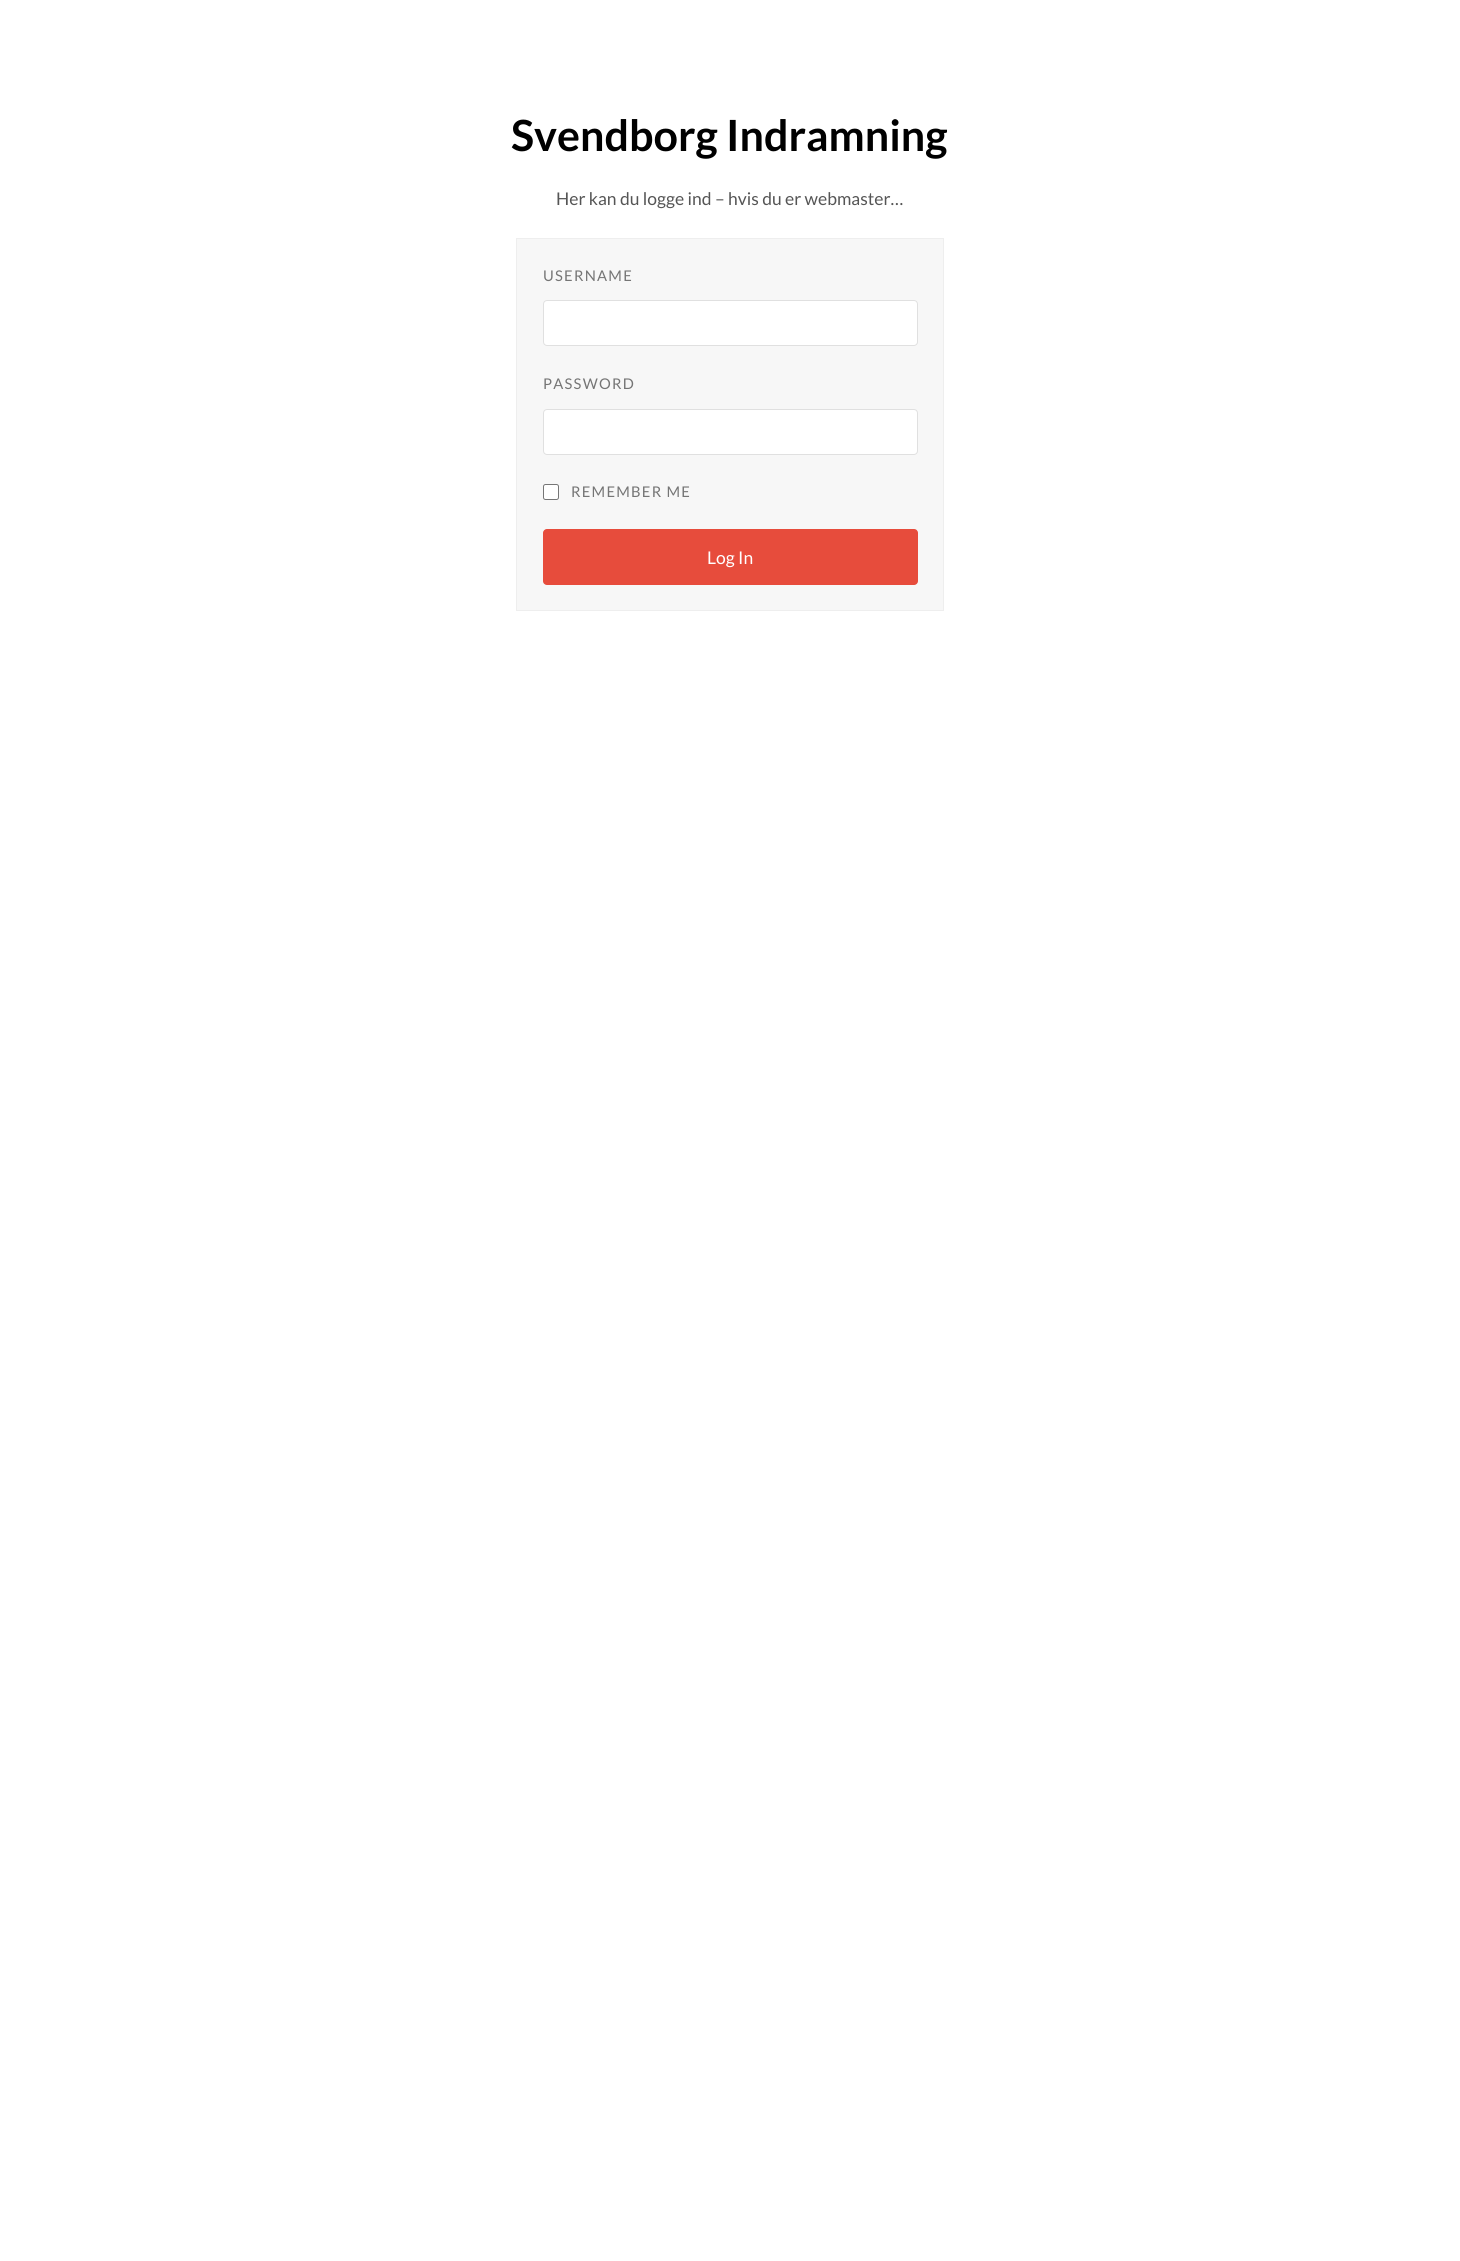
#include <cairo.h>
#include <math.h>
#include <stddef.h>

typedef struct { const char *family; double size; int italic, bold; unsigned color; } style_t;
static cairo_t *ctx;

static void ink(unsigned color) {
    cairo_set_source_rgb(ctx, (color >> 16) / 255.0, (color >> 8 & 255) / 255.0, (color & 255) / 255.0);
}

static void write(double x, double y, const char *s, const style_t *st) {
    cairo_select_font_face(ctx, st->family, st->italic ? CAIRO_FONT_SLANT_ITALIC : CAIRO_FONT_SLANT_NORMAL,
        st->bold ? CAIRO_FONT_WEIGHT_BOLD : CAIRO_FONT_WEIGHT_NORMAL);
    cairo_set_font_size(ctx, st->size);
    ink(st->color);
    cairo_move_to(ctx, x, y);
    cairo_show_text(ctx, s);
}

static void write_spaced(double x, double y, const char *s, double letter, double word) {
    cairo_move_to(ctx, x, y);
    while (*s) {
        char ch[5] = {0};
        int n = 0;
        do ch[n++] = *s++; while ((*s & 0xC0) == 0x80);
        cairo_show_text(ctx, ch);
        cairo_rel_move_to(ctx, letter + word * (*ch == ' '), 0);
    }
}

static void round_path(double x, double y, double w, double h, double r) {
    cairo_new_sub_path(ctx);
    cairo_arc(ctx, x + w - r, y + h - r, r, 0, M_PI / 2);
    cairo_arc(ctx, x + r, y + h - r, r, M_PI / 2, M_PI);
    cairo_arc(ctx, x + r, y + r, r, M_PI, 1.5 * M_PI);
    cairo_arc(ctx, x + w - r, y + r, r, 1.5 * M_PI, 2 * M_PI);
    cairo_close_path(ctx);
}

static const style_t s1 = {"Lato", 43, 0, 1, 0x000000};
static const style_t s2 = {"Lato", 17.5, 0, 0, 0x555555};
static const style_t s3 = {"Lato", 17.5, 0, 0, 0xffffff};

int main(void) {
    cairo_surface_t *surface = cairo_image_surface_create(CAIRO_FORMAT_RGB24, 1460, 2261);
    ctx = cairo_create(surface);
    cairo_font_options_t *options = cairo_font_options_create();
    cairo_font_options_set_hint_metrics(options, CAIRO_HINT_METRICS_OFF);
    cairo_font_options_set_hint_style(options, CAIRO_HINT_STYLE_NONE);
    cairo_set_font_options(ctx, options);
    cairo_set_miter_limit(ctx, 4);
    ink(0xffffff);
    cairo_paint(ctx);
    write(511, 151, "Svendborg Indramning", &s1);
    write(556, 205, "Her kan du logge ind – hvis du er webmaster…", &s2);
    ink(0xf7f7f7);
    cairo_rectangle(ctx, 516.5, 238.5, 427, 372);
    cairo_fill_preserve(ctx);
    ink(0xeeeeee);
    cairo_set_line_width(ctx, 1);
    cairo_stroke(ctx);
    cairo_set_font_size(ctx, 14.75);
    ink(0x757575);
    write_spaced(543, 281, "USERNAME", 1.25, 0);
    ink(0xffffff);
    round_path(543.5, 300.5, 374, 45, 3.5);
    cairo_fill_preserve(ctx);
    ink(0xe0e0e0);
    cairo_stroke(ctx);
    ink(0x757575);
    write_spaced(543, 389, "PASSWORD", 1.25, 0);
    ink(0xffffff);
    round_path(543.5, 409.5, 374, 45, 3.5);
    cairo_fill_preserve(ctx);
    ink(0xe0e0e0);
    cairo_stroke(ctx);
    ink(0xffffff);
    round_path(543.5, 484.5, 15, 15, 2);
    cairo_fill_preserve(ctx);
    ink(0x767676);
    cairo_stroke(ctx);
    ink(0x757575);
    write_spaced(571, 497, "REMEMBER ME", 1.25, 0);
    ink(0xe74c3c);
    round_path(543, 529, 375, 56, 4);
    cairo_fill(ctx);
    write(707, 564, "Log In", &s3);
    cairo_surface_write_to_png(surface, "screenshot.png");
    cairo_font_options_destroy(options);
    cairo_destroy(ctx);
    cairo_surface_destroy(surface);
    return 0;
}
